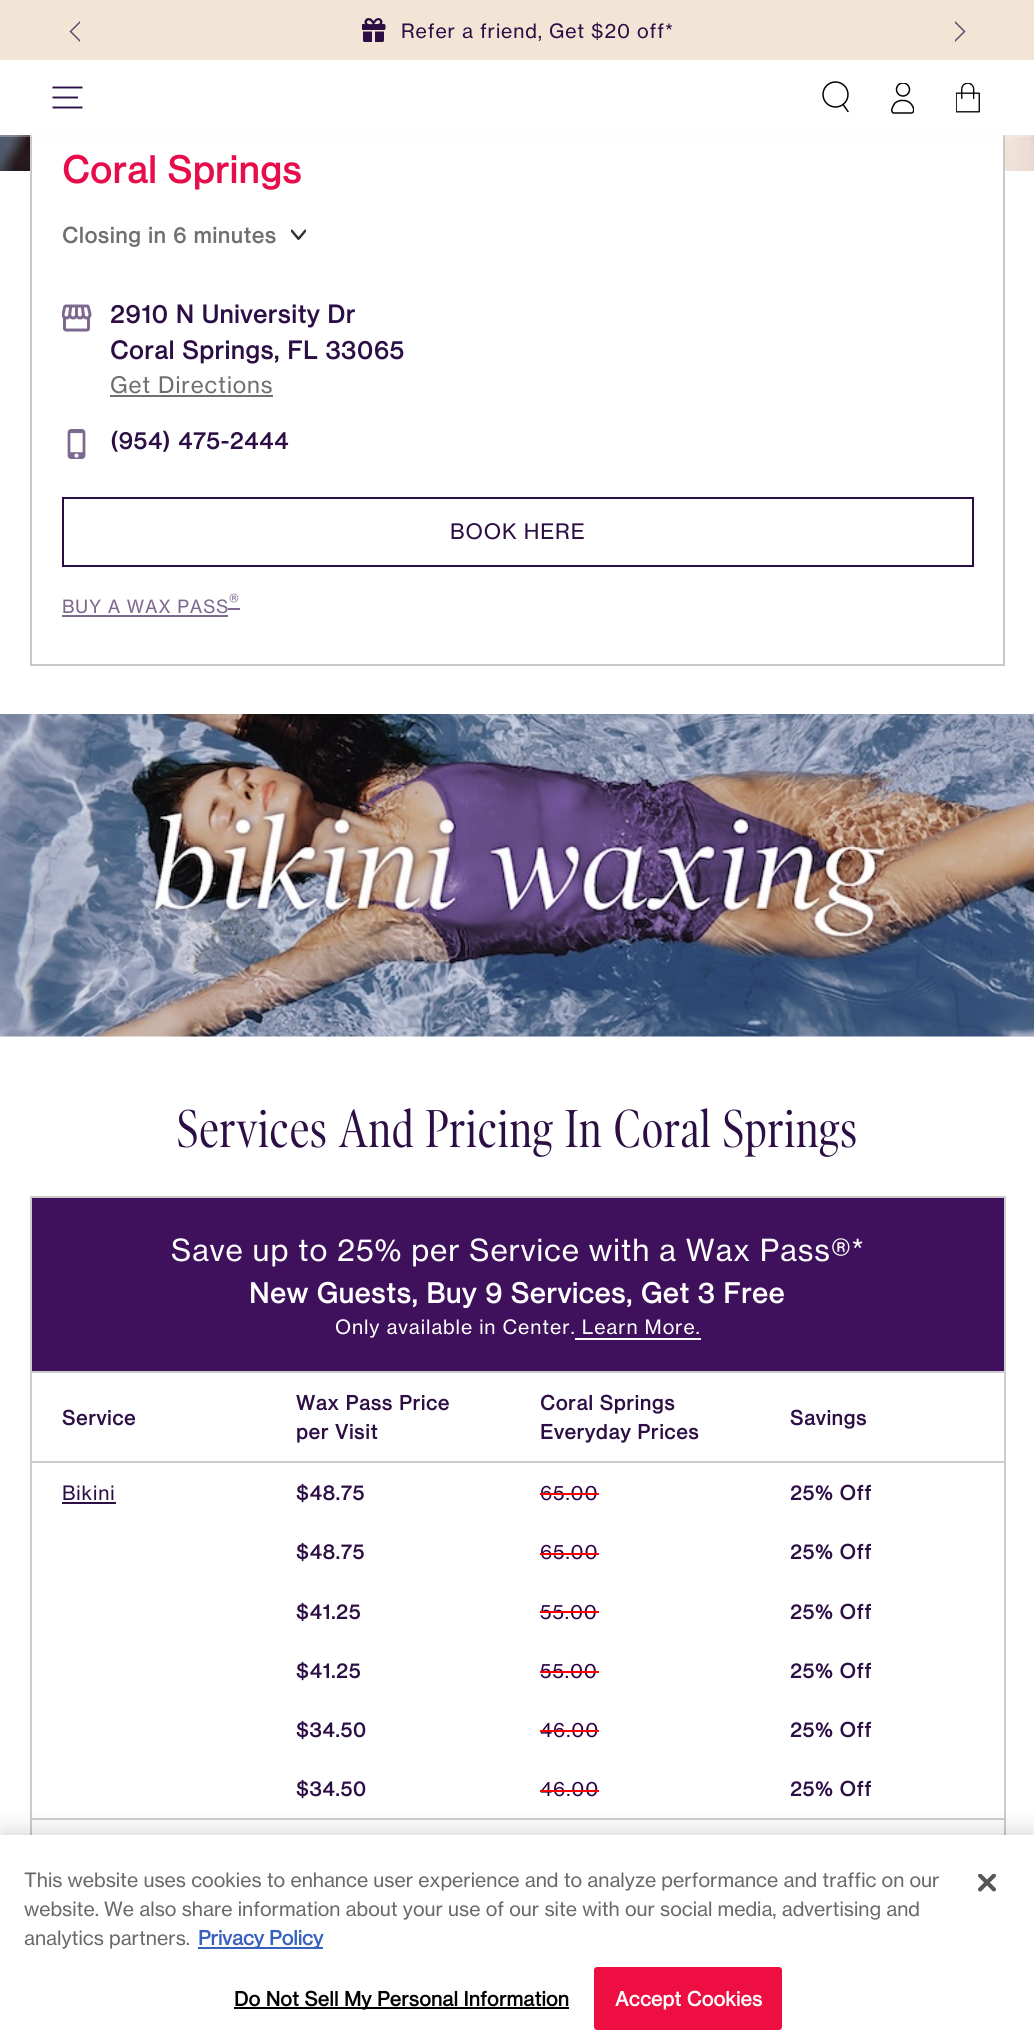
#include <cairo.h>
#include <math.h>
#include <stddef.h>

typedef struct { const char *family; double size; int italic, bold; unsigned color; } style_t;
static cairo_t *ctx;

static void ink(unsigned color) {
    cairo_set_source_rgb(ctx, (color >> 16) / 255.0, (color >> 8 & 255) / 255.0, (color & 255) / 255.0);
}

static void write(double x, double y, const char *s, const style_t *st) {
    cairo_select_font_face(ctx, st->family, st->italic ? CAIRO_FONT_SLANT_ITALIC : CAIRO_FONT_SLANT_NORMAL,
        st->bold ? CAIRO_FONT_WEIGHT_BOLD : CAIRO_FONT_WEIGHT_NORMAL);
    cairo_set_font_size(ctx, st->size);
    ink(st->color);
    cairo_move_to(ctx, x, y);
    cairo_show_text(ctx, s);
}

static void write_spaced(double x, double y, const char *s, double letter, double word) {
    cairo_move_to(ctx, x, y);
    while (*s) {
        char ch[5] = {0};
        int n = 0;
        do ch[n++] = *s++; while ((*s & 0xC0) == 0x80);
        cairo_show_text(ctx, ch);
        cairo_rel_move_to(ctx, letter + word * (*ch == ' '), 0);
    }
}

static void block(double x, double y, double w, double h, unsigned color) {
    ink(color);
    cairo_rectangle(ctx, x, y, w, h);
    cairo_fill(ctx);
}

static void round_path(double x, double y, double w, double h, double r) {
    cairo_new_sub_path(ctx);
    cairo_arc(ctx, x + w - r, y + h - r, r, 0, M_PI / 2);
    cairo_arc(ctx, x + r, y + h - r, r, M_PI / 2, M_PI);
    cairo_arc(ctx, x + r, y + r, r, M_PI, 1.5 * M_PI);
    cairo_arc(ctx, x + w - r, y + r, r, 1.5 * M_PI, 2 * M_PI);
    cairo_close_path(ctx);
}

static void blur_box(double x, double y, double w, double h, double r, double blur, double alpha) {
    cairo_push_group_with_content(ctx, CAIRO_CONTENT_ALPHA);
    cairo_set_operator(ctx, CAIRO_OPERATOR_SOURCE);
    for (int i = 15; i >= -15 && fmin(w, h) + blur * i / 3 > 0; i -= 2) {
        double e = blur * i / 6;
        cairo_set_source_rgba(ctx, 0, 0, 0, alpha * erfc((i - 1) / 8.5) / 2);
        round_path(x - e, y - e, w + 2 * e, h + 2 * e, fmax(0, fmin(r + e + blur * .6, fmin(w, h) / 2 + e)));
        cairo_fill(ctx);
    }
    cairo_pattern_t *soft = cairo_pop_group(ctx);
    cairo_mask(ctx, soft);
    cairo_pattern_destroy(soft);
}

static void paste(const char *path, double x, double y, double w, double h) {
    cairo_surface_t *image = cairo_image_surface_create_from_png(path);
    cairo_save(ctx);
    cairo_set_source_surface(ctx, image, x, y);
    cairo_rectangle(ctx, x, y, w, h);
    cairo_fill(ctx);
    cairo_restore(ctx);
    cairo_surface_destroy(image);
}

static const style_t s1 = {"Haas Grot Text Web", 19.5, 0, 0, 0x696969};
static const style_t s2 = {"Haas Grot Text Web", 19.5, 0, 1, 0x3860be};

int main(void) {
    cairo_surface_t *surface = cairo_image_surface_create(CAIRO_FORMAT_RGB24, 1034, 2044);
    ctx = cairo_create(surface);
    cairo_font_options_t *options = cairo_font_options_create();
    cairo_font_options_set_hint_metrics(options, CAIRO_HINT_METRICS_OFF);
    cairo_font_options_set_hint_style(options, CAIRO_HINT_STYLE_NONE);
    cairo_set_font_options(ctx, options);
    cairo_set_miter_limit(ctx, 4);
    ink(0xffffff);
    cairo_paint(ctx);
    block(0, 0, 1034, 60, 0xf2e5d6);
    ink(0x5e4469);
    cairo_set_fill_rule(ctx, CAIRO_FILL_RULE_EVEN_ODD);
    cairo_new_path(ctx);
    cairo_move_to(ctx, 69.5, 31.5);
    cairo_line_to(ctx, 80, 42);
    cairo_line_to(ctx, 80, 40);
    cairo_line_to(ctx, 71.5, 31.5);
    cairo_line_to(ctx, 80, 23);
    cairo_line_to(ctx, 80, 21);
    cairo_close_path(ctx);
    cairo_fill(ctx);
    cairo_new_path(ctx);
    cairo_move_to(ctx, 965.5, 31.5);
    cairo_line_to(ctx, 955, 42);
    cairo_line_to(ctx, 955, 40);
    cairo_line_to(ctx, 963.5, 31.5);
    cairo_line_to(ctx, 955, 23);
    cairo_line_to(ctx, 955, 21);
    cairo_close_path(ctx);
    cairo_fill(ctx);
    paste("pic1.png", 362, 18, 24, 24);
    cairo_select_font_face(ctx, "Haas Grot Text Web", CAIRO_FONT_SLANT_NORMAL, CAIRO_FONT_WEIGHT_NORMAL);
    cairo_set_font_size(ctx, 19.5);
    ink(0x2c0e45);
    write_spaced(401, 38, "Refer a friend, Get $20 off*", 0.9, 0);
    paste("pic3.png", 0, 135, 1034, 36);
    block(32, 135, 971, 36, 0xffffff);
    cairo_rectangle(ctx, 31, 112, 973, 553);
    ink(0xc8c8c8);
    cairo_stroke(ctx);
    cairo_set_source_rgba(ctx, 0.957, 0.953, 0.961, 0.3);
    cairo_rectangle(ctx, 0, 135, 1034, 2);
    cairo_fill(ctx);
    block(30, 111, 975, 24, 0xffffff);
    cairo_new_path(ctx);
    cairo_move_to(ctx, 52.5, 107.5);
    cairo_line_to(ctx, 82.5, 107.5);
    cairo_move_to(ctx, 52.5, 97.5);
    cairo_line_to(ctx, 78, 97.5);
    cairo_move_to(ctx, 52.5, 87.5);
    cairo_line_to(ctx, 82.5, 87.5);
    ink(0x2c0e45);
    cairo_set_line_width(ctx, 1.9);
    cairo_stroke(ctx);
    cairo_arc(ctx, 835.5, 94.5, 12.5, 0, 2 * M_PI);
    ink(0x000000);
    cairo_set_line_width(ctx, 1.5);
    cairo_stroke(ctx);
    cairo_new_path(ctx);
    cairo_move_to(ctx, 843, 104.5);
    cairo_line_to(ctx, 848, 111.5);
    cairo_set_line_cap(ctx, CAIRO_LINE_CAP_ROUND);
    cairo_stroke(ctx);
    cairo_save(ctx);
    cairo_set_fill_rule(ctx, CAIRO_FILL_RULE_WINDING);
    cairo_rectangle(ctx, 891, 83, 23, 31);
    cairo_clip(ctx);
    cairo_new_path(ctx);
    cairo_move_to(ctx, 903, 100.5);
    cairo_curve_to(ctx, 900, 100, 897, 101.5, 895, 103);
    cairo_curve_to(ctx, 893.5, 105, 889.5, 111.5, 893.5, 113);
    cairo_line_to(ctx, 911, 113);
    cairo_curve_to(ctx, 917, 113, 912.5, 100, 903, 100.5);
    cairo_close_path(ctx);
    cairo_set_line_cap(ctx, CAIRO_LINE_CAP_BUTT);
    cairo_stroke(ctx);
    cairo_arc(ctx, 903, 89.5, 6.5, 0, 2 * M_PI);
    cairo_stroke(ctx);
    cairo_restore(ctx);
    paste("pic2.png", 956, 83, 24, 30);
    cairo_select_font_face(ctx, "Haas Grot Text Web", CAIRO_FONT_SLANT_NORMAL, CAIRO_FONT_WEIGHT_BOLD);
    cairo_set_font_size(ctx, 36);
    ink(0xe70d4b);
    write_spaced(62, 183, "Coral Springs", 0.9, 0);
    cairo_set_font_size(ctx, 21);
    ink(0x6f6f6f);
    write_spaced(62, 243, "Closing in 6 minutes", 0.9, 0);
    paste("pic4.png", 291, 229, 15, 11);
    paste("pic5.png", 62, 304, 30, 28);
    cairo_set_font_size(ctx, 24);
    ink(0x2c0e45);
    write_spaced(110, 323, "2910 N University Dr", 0.9, 0);
    write_spaced(110, 359, "Coral Springs, FL 33065", 0.9, 0);
    cairo_select_font_face(ctx, "Haas Grot Text Web", CAIRO_FONT_SLANT_NORMAL, CAIRO_FONT_WEIGHT_NORMAL);
    cairo_set_font_size(ctx, 22.5);
    ink(0x6f6f6f);
    write_spaced(110, 393, "Get Directions", 0.9, 0);
    block(110, 395, 163, 2, 0x6f6f6f);
    paste("pic6.png", 67, 429, 19, 30);
    cairo_select_font_face(ctx, "Haas Grot Text Web", CAIRO_FONT_SLANT_NORMAL, CAIRO_FONT_WEIGHT_BOLD);
    ink(0x2c0e45);
    write_spaced(110, 449, "(954) 475-2444", 0.9, 0);
    cairo_rectangle(ctx, 63, 498, 910, 68);
    cairo_set_line_width(ctx, 2);
    cairo_set_line_cap(ctx, CAIRO_LINE_CAP_BUTT);
    cairo_stroke(ctx);
    cairo_select_font_face(ctx, "Haas Grot Text Web", CAIRO_FONT_SLANT_NORMAL, CAIRO_FONT_WEIGHT_NORMAL);
    cairo_set_font_size(ctx, 21);
    write_spaced(450, 539, "BOOK HERE", 0.9, 0);
    cairo_set_font_size(ctx, 15);
    ink(0x7d698f);
    write_spaced(229, 605, "®", 0.9, 0);
    block(228, 608, 12, 2, 0x7d698f);
    cairo_set_font_size(ctx, 18);
    write_spaced(62, 613, "BUY A WAX PASS", 0.9, 0);
    block(62, 615, 166, 2, 0x7d698f);
    paste("pic7.png", 0, 714, 1034, 323);
    cairo_select_font_face(ctx, "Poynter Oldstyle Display", CAIRO_FONT_SLANT_NORMAL, CAIRO_FONT_WEIGHT_NORMAL);
    cairo_set_font_size(ctx, 54);
    ink(0x2c0e45);
    write_spaced(177, 1147, "Services And Pricing In Coral Springs", 0.9, 0);
    block(30, 1196, 975, 2, 0xcccccc);
    block(1004, 1196, 2, 639, 0xcccccc);
    block(30, 1196, 2, 639, 0xcccccc);
    block(32, 1198, 972, 173, 0x3f115c);
    cairo_select_font_face(ctx, "Haas Grot Text Web", CAIRO_FONT_SLANT_NORMAL, CAIRO_FONT_WEIGHT_NORMAL);
    cairo_set_font_size(ctx, 30);
    ink(0xffffff);
    write_spaced(171, 1261, "Save up to 25% per Service with a Wax Pass®*", 0.9, 0);
    cairo_select_font_face(ctx, "Haas Grot Text Web", CAIRO_FONT_SLANT_NORMAL, CAIRO_FONT_WEIGHT_BOLD);
    cairo_set_font_size(ctx, 27);
    write_spaced(249, 1303, "New Guests, Buy 9 Services, Get 3 Free", 0.9, 0);
    cairo_select_font_face(ctx, "Haas Grot Text Web", CAIRO_FONT_SLANT_NORMAL, CAIRO_FONT_WEIGHT_NORMAL);
    cairo_set_font_size(ctx, 19.5);
    write_spaced(335, 1334, "Only available in Center. Learn More.", 0.9, 0);
    block(575, 1338, 126, 2, 0xffffff);
    block(30, 1371, 975, 2, 0xcccccc);
    cairo_select_font_face(ctx, "Haas Grot Text Web", CAIRO_FONT_SLANT_NORMAL, CAIRO_FONT_WEIGHT_BOLD);
    ink(0x2c0e45);
    write_spaced(62, 1425, "Service", 0.9, 0);
    write_spaced(296, 1410, "Wax Pass Price", 0.9, 0);
    write_spaced(296, 1439, "per Visit", 0.9, 0);
    write_spaced(540, 1410, "Coral Springs", 0.9, 0);
    write_spaced(540, 1439, "Everyday Prices", 0.9, 0);
    write_spaced(790, 1425, "Savings", 0.9, 0);
    block(30, 1461, 975, 2, 0xcccccc);
    cairo_select_font_face(ctx, "Haas Grot Text Web", CAIRO_FONT_SLANT_NORMAL, CAIRO_FONT_WEIGHT_NORMAL);
    ink(0x2c0e45);
    write_spaced(62, 1500, "Bikini", 0.9, 0);
    block(62, 1502, 54, 2, 0x2c0f44);
    cairo_select_font_face(ctx, "Haas Grot Text Web", CAIRO_FONT_SLANT_NORMAL, CAIRO_FONT_WEIGHT_BOLD);
    ink(0x2c0e45);
    write_spaced(296, 1500, "$48.75", 0.9, 0);
    cairo_select_font_face(ctx, "Haas Grot Text Web", CAIRO_FONT_SLANT_NORMAL, CAIRO_FONT_WEIGHT_NORMAL);
    ink(0x2c0345);
    write_spaced(540, 1500, "65.00", 0.9, 0);
    block(540, 1493, 59, 2, 0xff0000);
    cairo_select_font_face(ctx, "Haas Grot Text Web", CAIRO_FONT_SLANT_NORMAL, CAIRO_FONT_WEIGHT_BOLD);
    ink(0x2c0e45);
    write_spaced(790, 1500, "25% Off", 0.9, 0);
    write_spaced(296, 1559, "$48.75", 0.9, 0);
    cairo_select_font_face(ctx, "Haas Grot Text Web", CAIRO_FONT_SLANT_NORMAL, CAIRO_FONT_WEIGHT_NORMAL);
    ink(0x2c0345);
    write_spaced(540, 1559, "65.00", 0.9, 0);
    block(540, 1553, 59, 2, 0xff0000);
    cairo_select_font_face(ctx, "Haas Grot Text Web", CAIRO_FONT_SLANT_NORMAL, CAIRO_FONT_WEIGHT_BOLD);
    ink(0x2c0e45);
    write_spaced(790, 1559, "25% Off", 0.9, 0);
    write_spaced(296, 1619, "$41.25", 0.9, 0);
    cairo_select_font_face(ctx, "Haas Grot Text Web", CAIRO_FONT_SLANT_NORMAL, CAIRO_FONT_WEIGHT_NORMAL);
    ink(0x2c0345);
    write_spaced(540, 1619, "55.00", 0.9, 0);
    block(540, 1611, 59, 2, 0xff0000);
    cairo_select_font_face(ctx, "Haas Grot Text Web", CAIRO_FONT_SLANT_NORMAL, CAIRO_FONT_WEIGHT_BOLD);
    ink(0x2c0e45);
    write_spaced(790, 1619, "25% Off", 0.9, 0);
    write_spaced(296, 1678, "$41.25", 0.9, 0);
    cairo_select_font_face(ctx, "Haas Grot Text Web", CAIRO_FONT_SLANT_NORMAL, CAIRO_FONT_WEIGHT_NORMAL);
    ink(0x2c0345);
    write_spaced(540, 1678, "55.00", 0.9, 0);
    block(540, 1671, 59, 2, 0xff0000);
    cairo_select_font_face(ctx, "Haas Grot Text Web", CAIRO_FONT_SLANT_NORMAL, CAIRO_FONT_WEIGHT_BOLD);
    ink(0x2c0e45);
    write_spaced(790, 1678, "25% Off", 0.9, 0);
    write_spaced(296, 1737, "$34.50", 0.9, 0);
    cairo_select_font_face(ctx, "Haas Grot Text Web", CAIRO_FONT_SLANT_NORMAL, CAIRO_FONT_WEIGHT_NORMAL);
    ink(0x2c0345);
    write_spaced(540, 1737, "46.00", 0.9, 0);
    block(540, 1730, 59, 2, 0xff0000);
    cairo_select_font_face(ctx, "Haas Grot Text Web", CAIRO_FONT_SLANT_NORMAL, CAIRO_FONT_WEIGHT_BOLD);
    ink(0x2c0e45);
    write_spaced(790, 1737, "25% Off", 0.9, 0);
    write_spaced(296, 1796, "$34.50", 0.9, 0);
    cairo_select_font_face(ctx, "Haas Grot Text Web", CAIRO_FONT_SLANT_NORMAL, CAIRO_FONT_WEIGHT_NORMAL);
    ink(0x2c0345);
    write_spaced(540, 1796, "46.00", 0.9, 0);
    block(540, 1790, 59, 2, 0xff0000);
    cairo_select_font_face(ctx, "Haas Grot Text Web", CAIRO_FONT_SLANT_NORMAL, CAIRO_FONT_WEIGHT_BOLD);
    ink(0x2c0e45);
    write_spaced(790, 1796, "25% Off", 0.9, 0);
    block(30, 1818, 975, 2, 0xcccccc);
    ink(0x000000);
    blur_box(0, 1835, 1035, 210, 0, 13.5, 0.2);
    block(0, 1835, 1034, 209, 0xffffff);
    write(24, 1887, "This website uses cookies to enhance user experience and to analyze performance and traffic on our", &s1);
    write(24, 1916, "website. We also share information about your use of our site with our social media, advertising and", &s1);
    write(24, 1945, "analytics partners.", &s1);
    block(198, 1947, 125, 2, 0x3860be);
    write(198, 1945, "Privacy Policy", &s2);
    block(234, 2007, 335, 2, 0x000000);
    write_spaced(234, 2006, "Do Not Sell My Personal Information", 0.2, 0);
    ink(0xee0e42);
    round_path(595, 1968, 186, 61, 2);
    cairo_fill_preserve(ctx);
    cairo_stroke(ctx);
    ink(0xffffff);
    write_spaced(615, 2006, "Accept Cookies", 0.2, 0);
    paste("pic8.png", 978, 1874, 18, 18);
    cairo_surface_write_to_png(surface, "screenshot.png");
    cairo_font_options_destroy(options);
    cairo_destroy(ctx);
    cairo_surface_destroy(surface);
    return 0;
}
